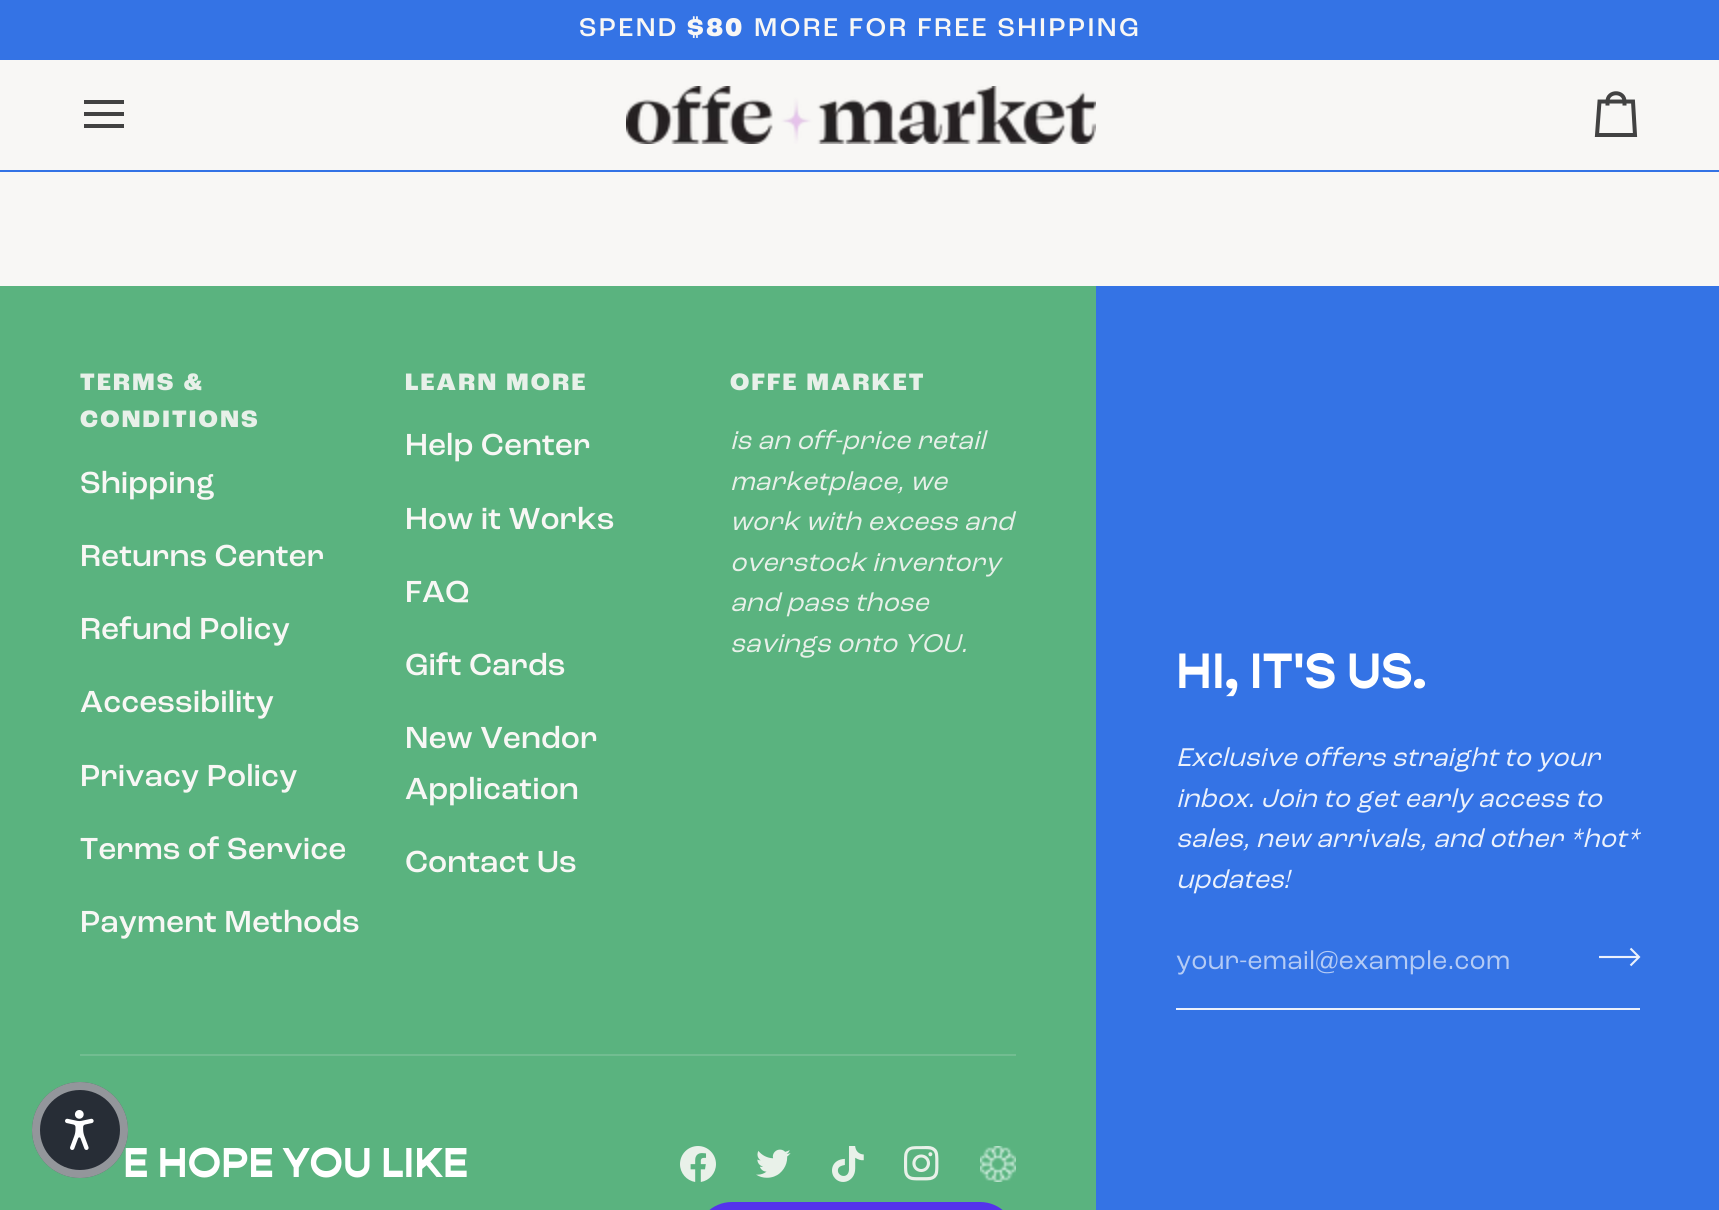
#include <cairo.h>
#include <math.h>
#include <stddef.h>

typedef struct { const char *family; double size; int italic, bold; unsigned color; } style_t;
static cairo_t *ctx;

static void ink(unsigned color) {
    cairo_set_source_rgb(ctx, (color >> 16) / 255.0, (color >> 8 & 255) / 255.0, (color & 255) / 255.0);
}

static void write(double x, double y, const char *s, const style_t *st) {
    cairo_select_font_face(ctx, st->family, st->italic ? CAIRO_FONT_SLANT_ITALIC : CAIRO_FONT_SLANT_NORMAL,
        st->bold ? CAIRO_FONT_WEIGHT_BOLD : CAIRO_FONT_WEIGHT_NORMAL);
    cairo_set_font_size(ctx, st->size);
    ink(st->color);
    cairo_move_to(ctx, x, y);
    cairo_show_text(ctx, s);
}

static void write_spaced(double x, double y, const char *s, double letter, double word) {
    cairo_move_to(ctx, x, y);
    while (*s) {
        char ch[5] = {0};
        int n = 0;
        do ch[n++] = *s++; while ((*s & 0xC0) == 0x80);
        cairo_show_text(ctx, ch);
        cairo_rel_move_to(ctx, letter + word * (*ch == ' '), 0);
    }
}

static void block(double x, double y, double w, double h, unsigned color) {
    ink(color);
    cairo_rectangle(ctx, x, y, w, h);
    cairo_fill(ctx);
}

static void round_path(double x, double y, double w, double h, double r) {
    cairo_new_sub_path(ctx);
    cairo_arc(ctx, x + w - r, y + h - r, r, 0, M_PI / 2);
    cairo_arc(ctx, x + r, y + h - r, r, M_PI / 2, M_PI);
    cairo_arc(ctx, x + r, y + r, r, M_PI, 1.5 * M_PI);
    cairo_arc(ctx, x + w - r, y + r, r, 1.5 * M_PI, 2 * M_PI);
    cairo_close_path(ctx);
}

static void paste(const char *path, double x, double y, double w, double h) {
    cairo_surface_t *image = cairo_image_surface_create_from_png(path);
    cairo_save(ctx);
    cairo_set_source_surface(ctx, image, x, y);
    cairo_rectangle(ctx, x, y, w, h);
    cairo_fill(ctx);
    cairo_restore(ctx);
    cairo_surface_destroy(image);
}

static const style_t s1 = {"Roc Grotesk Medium", 32, 0, 0, 0xf8f7f5};
static const style_t s2 = {"Roc Grotesk", 27, 1, 0, 0xe8f0e9};
static const style_t s3 = {"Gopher", 42, 0, 1, 0xffffff};
static const style_t s4 = {"Gopher", 50, 0, 1, 0xffffff};
static const style_t s5 = {"Roc Grotesk", 27, 1, 0, 0xebf1fc};
static const style_t s6 = {"Roc Grotesk", 27, 0, 0, 0xb4cbf5};

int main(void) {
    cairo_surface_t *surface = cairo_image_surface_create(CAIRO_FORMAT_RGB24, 1719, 1210);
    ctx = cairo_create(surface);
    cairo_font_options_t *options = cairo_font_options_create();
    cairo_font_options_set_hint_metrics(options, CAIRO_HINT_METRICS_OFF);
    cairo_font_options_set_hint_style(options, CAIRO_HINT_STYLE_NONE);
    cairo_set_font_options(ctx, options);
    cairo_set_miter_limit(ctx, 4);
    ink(0xf8f7f5);
    cairo_paint(ctx);
    block(0, 0, 1719, 60, 0x3473e5);
    cairo_select_font_face(ctx, "Roc Grotesk Medium", CAIRO_FONT_SLANT_NORMAL, CAIRO_FONT_WEIGHT_NORMAL);
    cairo_set_font_size(ctx, 27);
    ink(0xf8f7f5);
    write_spaced(579, 36, "SPEND", 2.4, 0);
    cairo_select_font_face(ctx, "Roc Grotesk ExtraBold", CAIRO_FONT_SLANT_NORMAL, CAIRO_FONT_WEIGHT_NORMAL);
    write_spaced(687, 36, "$80", 2.4, 0);
    cairo_select_font_face(ctx, "Roc Grotesk Medium", CAIRO_FONT_SLANT_NORMAL, CAIRO_FONT_WEIGHT_NORMAL);
    write_spaced(754, 36, "MORE FOR FREE SHIPPING", 2.4, 0);
    block(0, 170, 1719, 2, 0x3473e5);
    cairo_new_path(ctx);
    cairo_move_to(ctx, 122, 102);
    cairo_line_to(ctx, 86, 102);
    cairo_move_to(ctx, 122, 114);
    cairo_line_to(ctx, 86, 114);
    cairo_move_to(ctx, 122, 126);
    cairo_line_to(ctx, 86, 126);
    ink(0x424242);
    cairo_set_line_width(ctx, 4);
    cairo_set_line_cap(ctx, CAIRO_LINE_CAP_SQUARE);
    cairo_stroke(ctx);
    paste("pic1.png", 626, 86, 470, 58);
    cairo_new_path(ctx);
    cairo_move_to(ctx, 1624.5, 105.5);
    cairo_line_to(ctx, 1624.5, 101.5);
    cairo_line_to(ctx, 1633, 101.5);
    cairo_line_to(ctx, 1635, 135);
    cairo_line_to(ctx, 1597, 135);
    cairo_line_to(ctx, 1599.5, 101.5);
    cairo_line_to(ctx, 1607.5, 101.5);
    cairo_curve_to(ctx, 1607.5, 90.5, 1624.5, 90.5, 1624.5, 101.5);
    cairo_line_to(ctx, 1607.5, 101.5);
    cairo_line_to(ctx, 1607.5, 105.5);
    cairo_set_line_cap(ctx, CAIRO_LINE_CAP_BUTT);
    cairo_stroke(ctx);
    block(0, 286, 1096, 924, 0x5ab37f);
    cairo_select_font_face(ctx, "Roc Grotesk ExtraBold", CAIRO_FONT_SLANT_NORMAL, CAIRO_FONT_WEIGHT_NORMAL);
    cairo_set_font_size(ctx, 25);
    ink(0xe8f0e9);
    write_spaced(80, 390, "TERMS &", 2.25, 0);
    write_spaced(80, 427, "CONDITIONS", 2.25, 0);
    write(80, 493, "Shipping", &s1);
    write(80, 566, "Returns Center", &s1);
    write(80, 639, "Refund Policy", &s1);
    write(80, 712, "Accessibility", &s1);
    write(80, 786, "Privacy Policy", &s1);
    write(80, 859, "Terms of Service", &s1);
    write(80, 932, "Payment Methods", &s1);
    cairo_select_font_face(ctx, "Roc Grotesk ExtraBold", CAIRO_FONT_SLANT_NORMAL, CAIRO_FONT_WEIGHT_NORMAL);
    cairo_set_font_size(ctx, 25);
    ink(0xe8f0e9);
    write_spaced(405, 390, "LEARN MORE", 2.25, 0);
    write(405, 455, "Help Center", &s1);
    write(405, 529, "How it Works", &s1);
    write(405, 602, "FAQ", &s1);
    write(405, 675, "Gift Cards", &s1);
    write(405, 748, "New Vendor", &s1);
    write(405, 799, "Application", &s1);
    write(405, 872, "Contact Us", &s1);
    cairo_select_font_face(ctx, "Roc Grotesk ExtraBold", CAIRO_FONT_SLANT_NORMAL, CAIRO_FONT_WEIGHT_NORMAL);
    cairo_set_font_size(ctx, 25);
    ink(0xe8f0e9);
    write_spaced(730, 390, "OFFE MARKET", 2.25, 0);
    write(730, 449, "is an off-price retail", &s2);
    write(730, 490, "marketplace, we", &s2);
    write(730, 530, "work with excess and", &s2);
    write(730, 571, "overstock inventory", &s2);
    write(730, 611, "and pass those", &s2);
    write(730, 652, "savings onto YOU.", &s2);
    block(80, 1054, 936, 2, 0x72bd91);
    write(123, 1177, "E HOPE YOU LIKE", &s3);
    paste("pic2.png", 680, 1146, 36, 36);
    paste("pic3.png", 756, 1149, 35, 29);
    paste("pic4.png", 832, 1146, 32, 36);
    paste("pic5.png", 904, 1146, 35, 35);
    paste("pic6.png", 980, 1146, 36, 36);
    ink(0x5433eb);
    round_path(696, 1202, 320, 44, 36);
    cairo_fill(ctx);
    block(1096, 286, 623, 924, 0x3473e5);
    write(1176, 688, "HI, IT'S US.", &s4);
    write(1176, 766, "Exclusive offers straight to your", &s5);
    write(1176, 807, "inbox. Join to get early access to", &s5);
    write(1176, 847, "sales, new arrivals, and other *hot*", &s5);
    write(1176, 888, "updates!", &s5);
    block(1176, 1008, 464, 2, 0xebf1fc);
    write(1176, 969, "your-email@example.com", &s6);
    cairo_new_path(ctx);
    cairo_move_to(ctx, 1630.5, 948.5);
    cairo_line_to(ctx, 1639, 957);
    cairo_line_to(ctx, 1630.5, 965.5);
    cairo_move_to(ctx, 1599, 957);
    cairo_line_to(ctx, 1639, 957);
    ink(0xebf1fc);
    cairo_set_line_width(ctx, 2.1);
    cairo_stroke(ctx);
    ink(0x272d36);
    cairo_arc(ctx, 80, 1130, 48, 0, 2 * M_PI);
    cairo_fill(ctx);
    cairo_arc(ctx, 80, 1130, 44, 0, 2 * M_PI);
    cairo_set_source_rgba(ctx, 1, 1, 1, 0.5);
    cairo_set_line_width(ctx, 8);
    cairo_stroke(ctx);
    paste("pic7.png", 65, 1110, 29, 40);
    cairo_surface_write_to_png(surface, "screenshot.png");
    cairo_font_options_destroy(options);
    cairo_destroy(ctx);
    cairo_surface_destroy(surface);
    return 0;
}
